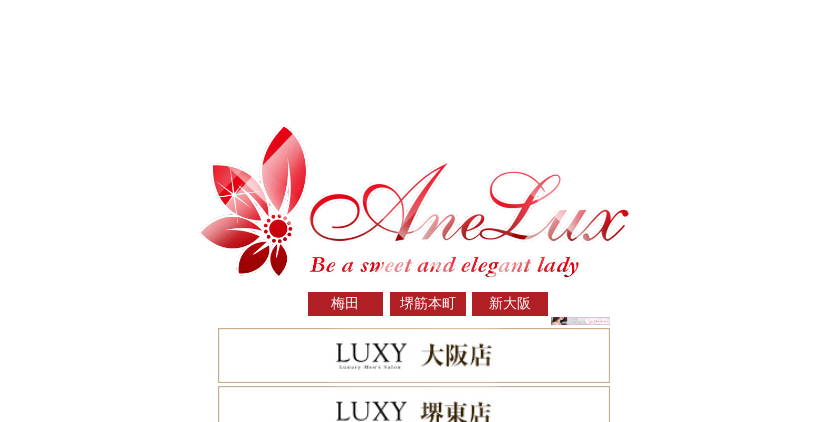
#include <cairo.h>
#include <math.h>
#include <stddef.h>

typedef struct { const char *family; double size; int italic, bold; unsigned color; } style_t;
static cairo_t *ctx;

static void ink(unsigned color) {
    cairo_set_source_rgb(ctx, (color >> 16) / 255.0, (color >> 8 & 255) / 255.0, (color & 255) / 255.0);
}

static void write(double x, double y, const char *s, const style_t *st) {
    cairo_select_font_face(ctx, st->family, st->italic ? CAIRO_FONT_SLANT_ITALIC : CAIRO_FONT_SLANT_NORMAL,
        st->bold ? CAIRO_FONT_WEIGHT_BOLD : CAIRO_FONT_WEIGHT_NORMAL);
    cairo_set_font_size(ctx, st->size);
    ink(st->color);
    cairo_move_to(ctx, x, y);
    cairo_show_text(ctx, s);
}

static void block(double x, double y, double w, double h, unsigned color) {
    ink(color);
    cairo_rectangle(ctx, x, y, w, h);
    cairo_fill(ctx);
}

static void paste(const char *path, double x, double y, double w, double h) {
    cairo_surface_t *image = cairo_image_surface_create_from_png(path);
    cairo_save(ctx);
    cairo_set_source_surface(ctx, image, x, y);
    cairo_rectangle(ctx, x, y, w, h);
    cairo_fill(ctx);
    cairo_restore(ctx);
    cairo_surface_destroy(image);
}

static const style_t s1 = {"WenQuanYi Zen Hei Medium", 14, 0, 0, 0xffffff};

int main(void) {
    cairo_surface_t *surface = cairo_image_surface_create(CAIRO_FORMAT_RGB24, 828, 422);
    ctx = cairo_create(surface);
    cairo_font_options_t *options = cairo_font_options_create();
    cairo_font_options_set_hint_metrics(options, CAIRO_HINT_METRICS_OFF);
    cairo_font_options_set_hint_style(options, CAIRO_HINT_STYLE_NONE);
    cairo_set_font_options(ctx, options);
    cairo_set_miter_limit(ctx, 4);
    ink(0xffffff);
    cairo_paint(ctx);
    paste("pic1.png", 199, 124, 432, 156);
    block(308, 292, 75, 24, 0xaf1f24);
    write(331, 308, "梅田", &s1);
    block(390, 292, 76, 24, 0xaf1f24);
    write(400, 308, "堺筋本町", &s1);
    block(472, 292, 76, 24, 0xaf1f24);
    write(489, 308, "新大阪", &s1);
    paste("pic2.png", 551, 317, 59, 8);
    paste("pic3.png", 218, 328, 392, 55);
    paste("pic4.png", 218, 386, 392, 36);
    cairo_surface_write_to_png(surface, "screenshot.png");
    cairo_font_options_destroy(options);
    cairo_destroy(ctx);
    cairo_surface_destroy(surface);
    return 0;
}
